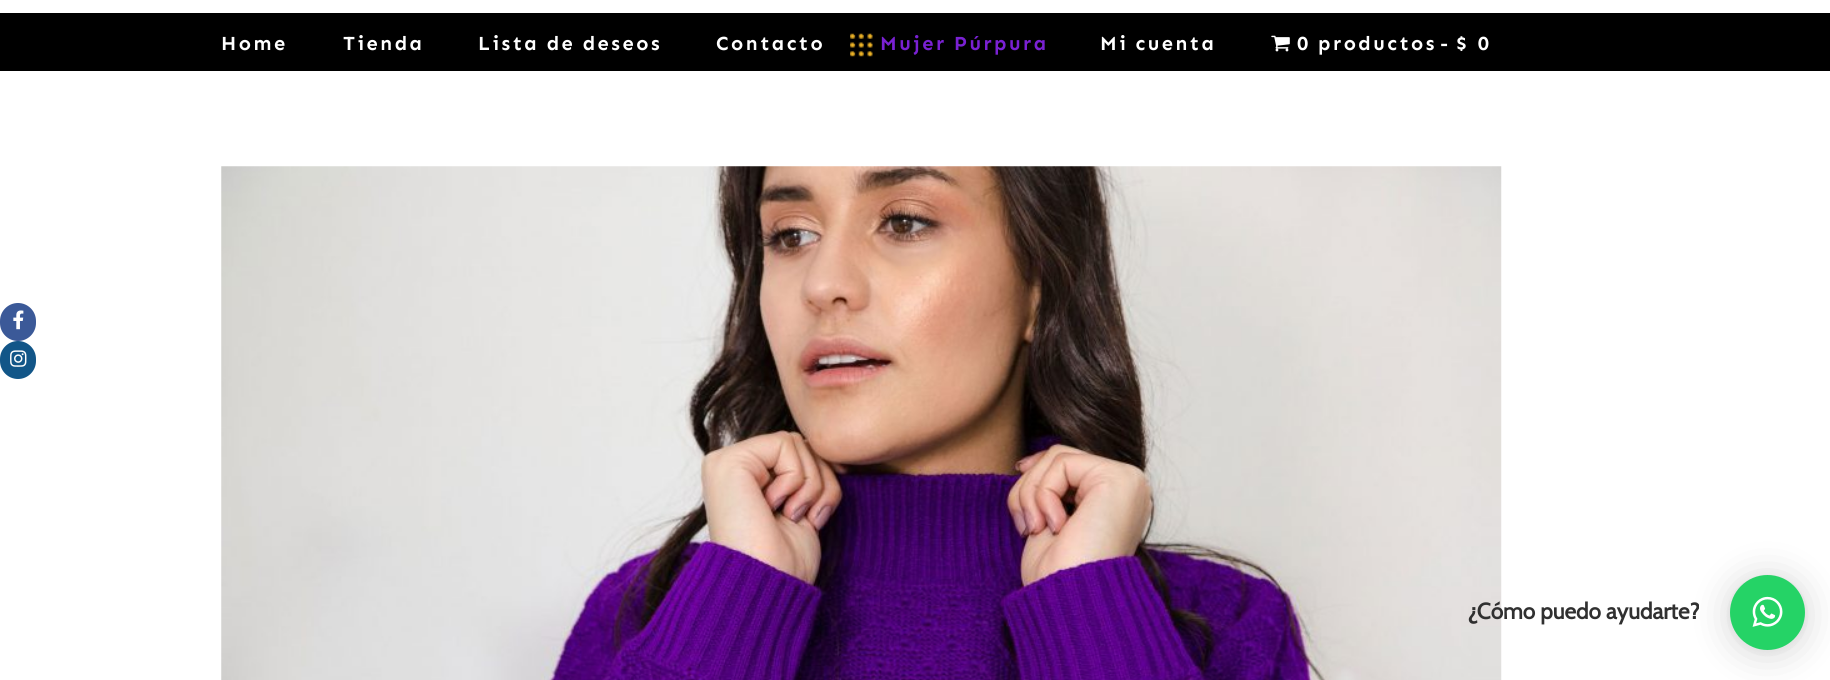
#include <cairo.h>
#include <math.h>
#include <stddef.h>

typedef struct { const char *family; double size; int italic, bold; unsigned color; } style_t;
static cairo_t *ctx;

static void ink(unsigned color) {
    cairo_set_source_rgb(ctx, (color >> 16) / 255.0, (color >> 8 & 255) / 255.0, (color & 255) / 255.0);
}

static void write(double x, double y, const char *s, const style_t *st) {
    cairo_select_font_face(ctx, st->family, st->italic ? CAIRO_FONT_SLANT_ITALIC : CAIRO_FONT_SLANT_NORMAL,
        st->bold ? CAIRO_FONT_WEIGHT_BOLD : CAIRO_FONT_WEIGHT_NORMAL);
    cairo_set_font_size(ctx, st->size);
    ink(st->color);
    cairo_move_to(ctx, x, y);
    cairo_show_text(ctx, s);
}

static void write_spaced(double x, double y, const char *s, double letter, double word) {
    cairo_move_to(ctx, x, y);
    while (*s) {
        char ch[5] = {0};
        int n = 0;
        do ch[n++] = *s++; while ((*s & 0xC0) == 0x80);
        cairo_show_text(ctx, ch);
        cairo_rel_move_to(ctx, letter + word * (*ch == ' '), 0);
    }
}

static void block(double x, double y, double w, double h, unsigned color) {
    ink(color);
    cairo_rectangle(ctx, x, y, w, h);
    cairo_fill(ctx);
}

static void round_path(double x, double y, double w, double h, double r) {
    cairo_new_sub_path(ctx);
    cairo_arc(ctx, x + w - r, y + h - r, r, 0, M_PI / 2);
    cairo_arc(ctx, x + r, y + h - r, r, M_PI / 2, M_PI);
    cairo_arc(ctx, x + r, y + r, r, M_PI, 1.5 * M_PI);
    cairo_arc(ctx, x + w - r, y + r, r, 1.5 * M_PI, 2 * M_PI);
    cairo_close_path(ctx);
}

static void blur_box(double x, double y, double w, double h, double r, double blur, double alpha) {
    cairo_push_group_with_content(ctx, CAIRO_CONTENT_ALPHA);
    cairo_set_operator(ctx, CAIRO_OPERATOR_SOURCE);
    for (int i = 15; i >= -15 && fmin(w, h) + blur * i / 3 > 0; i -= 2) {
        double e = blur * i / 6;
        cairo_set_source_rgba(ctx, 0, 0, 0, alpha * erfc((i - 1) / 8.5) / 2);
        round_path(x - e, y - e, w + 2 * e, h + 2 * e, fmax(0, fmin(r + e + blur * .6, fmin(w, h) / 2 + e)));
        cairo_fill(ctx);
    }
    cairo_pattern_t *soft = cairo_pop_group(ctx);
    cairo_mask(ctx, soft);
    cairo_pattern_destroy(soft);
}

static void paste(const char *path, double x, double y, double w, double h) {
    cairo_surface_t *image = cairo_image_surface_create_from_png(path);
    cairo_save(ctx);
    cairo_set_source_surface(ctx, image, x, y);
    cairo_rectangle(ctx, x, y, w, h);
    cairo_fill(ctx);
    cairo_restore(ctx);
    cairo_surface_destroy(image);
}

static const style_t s1 = {"Cabin", 22.5, 0, 1, 0x303030};

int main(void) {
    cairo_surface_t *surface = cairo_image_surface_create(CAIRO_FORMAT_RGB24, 1830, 680);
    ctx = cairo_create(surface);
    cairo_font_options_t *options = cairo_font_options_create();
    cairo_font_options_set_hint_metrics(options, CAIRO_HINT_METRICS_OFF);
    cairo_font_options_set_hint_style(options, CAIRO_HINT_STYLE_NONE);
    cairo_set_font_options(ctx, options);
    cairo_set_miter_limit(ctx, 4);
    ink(0xffffff);
    cairo_paint(ctx);
    block(0, 13, 1830, 58, 0x000000);
    cairo_select_font_face(ctx, "Sen", CAIRO_FONT_SLANT_NORMAL, CAIRO_FONT_WEIGHT_BOLD);
    cairo_set_font_size(ctx, 20);
    ink(0xffffff);
    write_spaced(221, 50, "Home", 2.5, 0);
    write_spaced(343, 50, "Tienda", 2.5, 0);
    write_spaced(478, 50, "Lista de deseos", 2.5, -1);
    write_spaced(716, 50, "Contacto", 2.5, 0);
    paste("pic1.png", 850, 33, 23, 24);
    ink(0x7a21d3);
    write_spaced(880, 50, "Mujer Púrpura", 2.5, -1);
    ink(0xffffff);
    write_spaced(1100, 50, "Mi cuenta", 2.5, -1);
    paste("pic2.png", 1271, 35, 19, 17);
    write_spaced(1297, 50, "0 productos", 2.5, -1);
    write_spaced(1440, 50, "-", 2.5, 0);
    write_spaced(1456, 50, "$ 0", 2.5, 0);
    ink(0x3b5998);
    round_path(0, 303, 36, 38, 18);
    cairo_fill(ctx);
    paste("pic3.png", 13, 310, 11, 20);
    ink(0x125688);
    round_path(0, 341, 36, 38, 18);
    cairo_fill(ctx);
    paste("pic4.png", 10, 350, 17, 17);
    paste("pic5.png", 221, 166, 1281, 514);
    ink(0x000000);
    blur_box(1730, 578, 75, 75, 37.5, 20, 0.16);
    blur_box(1730, 576, 75, 75, 37.5, 4, 0.06);
    ink(0x25d366);
    cairo_arc(ctx, 1767.5, 612.5, 37.5, 0, 2 * M_PI);
    cairo_fill(ctx);
    write(1468, 619, "¿Cómo puedo ayudarte?", &s1);
    paste("pic6.png", 1752, 596, 31, 31);
    cairo_surface_write_to_png(surface, "screenshot.png");
    cairo_font_options_destroy(options);
    cairo_destroy(ctx);
    cairo_surface_destroy(surface);
    return 0;
}
